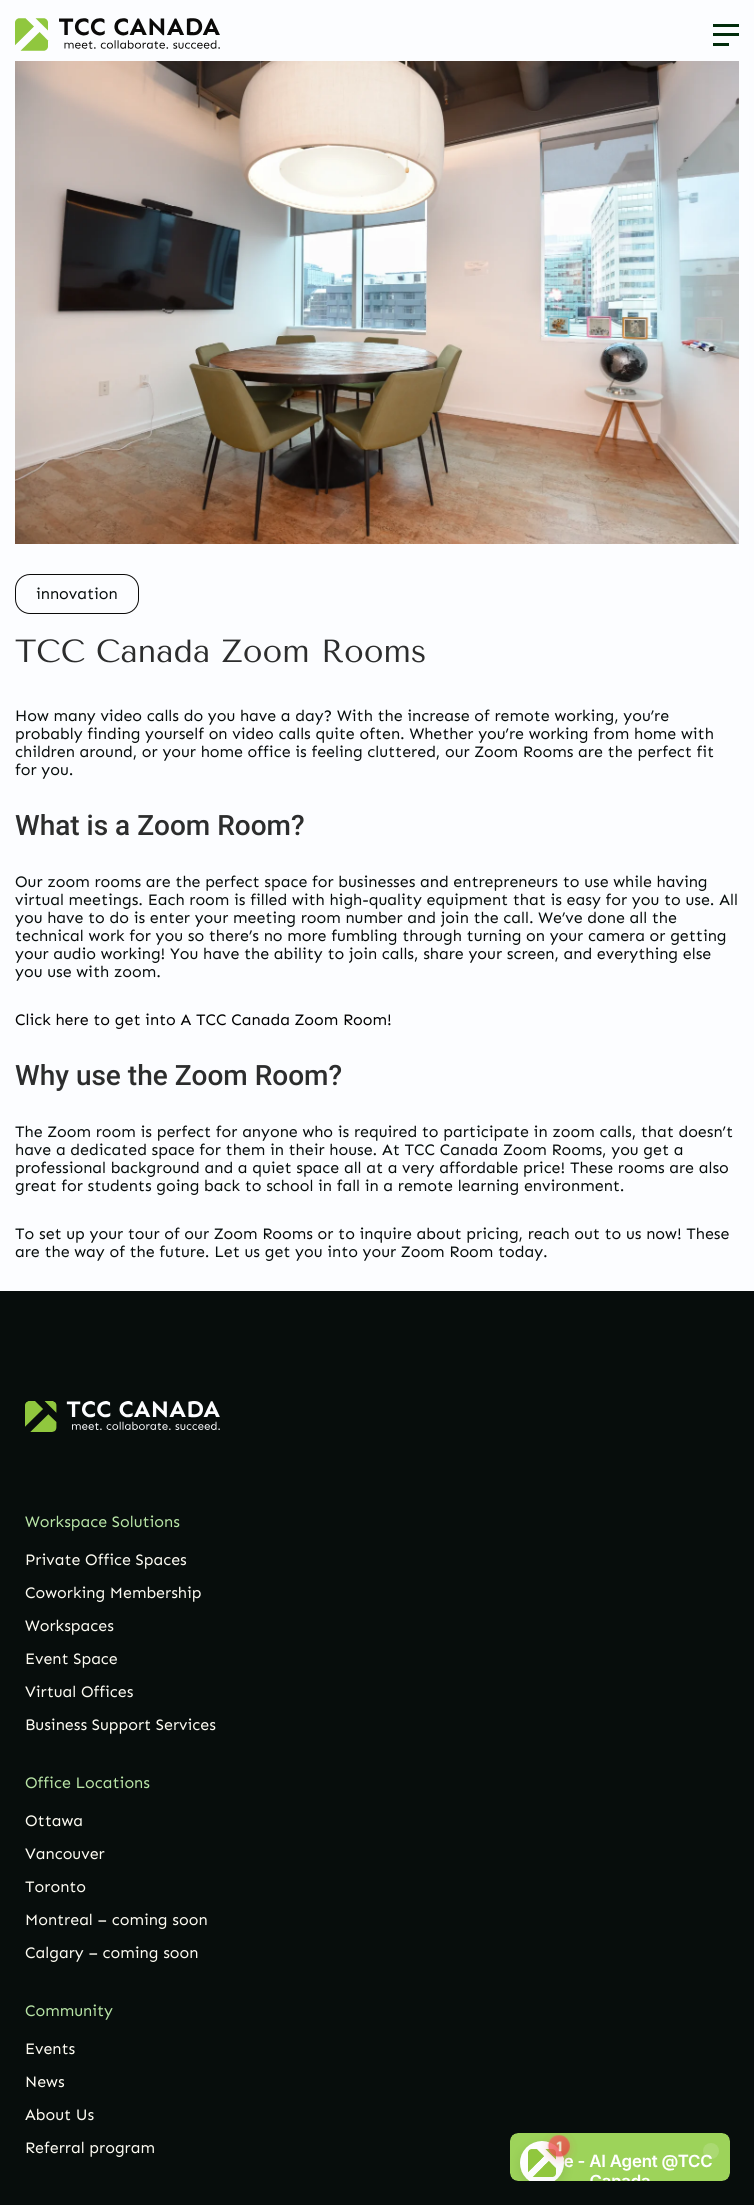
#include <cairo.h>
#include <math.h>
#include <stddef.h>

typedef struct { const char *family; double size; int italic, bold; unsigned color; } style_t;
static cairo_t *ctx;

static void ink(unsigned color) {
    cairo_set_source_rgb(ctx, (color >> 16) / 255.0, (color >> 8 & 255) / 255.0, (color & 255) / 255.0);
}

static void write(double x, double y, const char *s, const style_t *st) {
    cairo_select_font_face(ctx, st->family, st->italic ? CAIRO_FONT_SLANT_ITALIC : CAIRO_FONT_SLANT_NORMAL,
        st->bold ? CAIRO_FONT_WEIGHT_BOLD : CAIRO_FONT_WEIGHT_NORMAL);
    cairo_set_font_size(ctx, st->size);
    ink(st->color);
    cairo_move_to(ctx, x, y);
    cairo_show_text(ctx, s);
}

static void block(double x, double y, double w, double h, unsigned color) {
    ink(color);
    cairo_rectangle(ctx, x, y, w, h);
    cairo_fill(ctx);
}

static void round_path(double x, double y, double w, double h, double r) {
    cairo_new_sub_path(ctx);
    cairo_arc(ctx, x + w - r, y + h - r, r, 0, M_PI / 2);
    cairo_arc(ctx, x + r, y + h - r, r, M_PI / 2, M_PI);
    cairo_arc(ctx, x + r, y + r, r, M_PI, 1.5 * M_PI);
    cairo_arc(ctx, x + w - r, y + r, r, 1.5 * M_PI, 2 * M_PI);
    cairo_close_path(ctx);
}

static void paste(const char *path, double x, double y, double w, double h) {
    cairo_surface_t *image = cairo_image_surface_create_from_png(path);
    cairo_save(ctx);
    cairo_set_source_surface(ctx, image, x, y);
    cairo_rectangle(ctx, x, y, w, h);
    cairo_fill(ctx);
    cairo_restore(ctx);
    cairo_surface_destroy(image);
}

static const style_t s1 = {"Sen", 16, 0, 0, 0x070d0c};
static const style_t s2 = {"Tenor Sans", 32, 0, 0, 0x2c2d2d};
static const style_t s3 = {"Roboto Medium", 28, 0, 0, 0x2c2d2d};
static const style_t s4 = {"Sen", 16, 0, 0, 0x000000};
static const style_t s5 = {"Sen", 16, 0, 0, 0xb8e4a6};
static const style_t s6 = {"Sen", 16, 0, 0, 0xfefcf3};

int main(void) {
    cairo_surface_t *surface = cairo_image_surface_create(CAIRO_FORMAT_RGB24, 754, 2205);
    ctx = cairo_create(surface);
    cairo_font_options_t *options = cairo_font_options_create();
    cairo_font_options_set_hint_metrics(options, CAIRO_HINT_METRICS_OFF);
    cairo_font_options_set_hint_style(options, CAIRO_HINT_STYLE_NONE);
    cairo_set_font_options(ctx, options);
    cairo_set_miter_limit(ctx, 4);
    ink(0xfcfdff);
    cairo_paint(ctx);
    paste("pic1.png", 15, 18, 205, 33);
    block(713, 24, 26, 3, 0x012c0b);
    block(713, 33, 26, 3, 0x012c0b);
    block(713, 43, 16, 3, 0x012c0b);
    paste("pic2.png", 15, 61, 724, 483);
    round_path(15.5, 574.5, 123, 39, 14.5);
    ink(0x0b0a09);
    cairo_set_line_width(ctx, 1);
    cairo_stroke(ctx);
    write(36, 599, "innovation", &s1);
    write(15, 662, "TCC Canada Zoom Rooms", &s2);
    write(15, 721, "How many video calls do you have a day? With the increase of remote working, you’re", &s1);
    write(15, 739, "probably finding yourself on video calls quite often. Whether you’re working from home with", &s1);
    write(15, 757, "children around, or your home office is feeling cluttered, our Zoom Rooms are the perfect fit", &s1);
    write(15, 775, "for you.", &s1);
    write(15, 835, "What is a Zoom Room?", &s3);
    write(15, 887, "Our zoom rooms are the perfect space for businesses and entrepreneurs to use while having", &s1);
    write(15, 905, "virtual meetings. Each room is filled with high-quality equipment that is easy for you to use. All", &s1);
    write(15, 923, "you have to do is enter your meeting room number and join the call. We’ve done all the", &s1);
    write(15, 941, "technical work for you so there’s no more fumbling through turning on your camera or getting", &s1);
    write(15, 959, "your audio working! You have the ability to join calls, share your screen, and everything else", &s1);
    write(15, 977, "you use with zoom.", &s1);
    write(15, 1025, "Click here to get into A TCC Canada Zoom Room!", &s4);
    write(15, 1085, "Why use the Zoom Room?", &s3);
    write(15, 1137, "The Zoom room is perfect for anyone who is required to participate in zoom calls, that doesn’t", &s1);
    write(15, 1155, "have a dedicated space for them in their house. At TCC Canada Zoom Rooms, you get a", &s1);
    write(15, 1173, "professional background and a quiet space all at a very affordable price! These rooms are also", &s1);
    write(15, 1191, "great for students going back to school in fall in a remote learning environment.", &s1);
    write(15, 1239, "To set up your tour of our Zoom Rooms or to inquire about pricing, reach out to us now! These", &s1);
    write(15, 1257, "are the way of the future. Let us get you into your Zoom Room today.", &s1);
    block(0, 1291, 754, 914, 0x070d0c);
    paste("pic3.png", 25, 1401, 195, 31);
    write(25, 1527, "Workspace Solutions", &s5);
    write(25, 1565, "Private Office Spaces", &s6);
    write(25, 1598, "Coworking Membership", &s6);
    write(25, 1631, "Workspaces", &s6);
    write(25, 1664, "Event Space", &s6);
    write(25, 1697, "Virtual Offices", &s6);
    write(25, 1730, "Business Support Services", &s6);
    write(25, 1788, "Office Locations", &s5);
    write(25, 1826, "Ottawa", &s6);
    write(25, 1859, "Vancouver", &s6);
    write(25, 1892, "Toronto", &s6);
    write(25, 1925, "Montreal – coming soon", &s6);
    write(25, 1958, "Calgary – coming soon", &s6);
    write(25, 2016, "Community", &s5);
    write(25, 2054, "Events", &s6);
    write(25, 2087, "News", &s6);
    write(25, 2120, "About Us", &s6);
    write(25, 2153, "Referral program", &s6);
    paste("pic4.png", 510, 2133, 220, 48);
    cairo_surface_write_to_png(surface, "screenshot.png");
    cairo_font_options_destroy(options);
    cairo_destroy(ctx);
    cairo_surface_destroy(surface);
    return 0;
}
